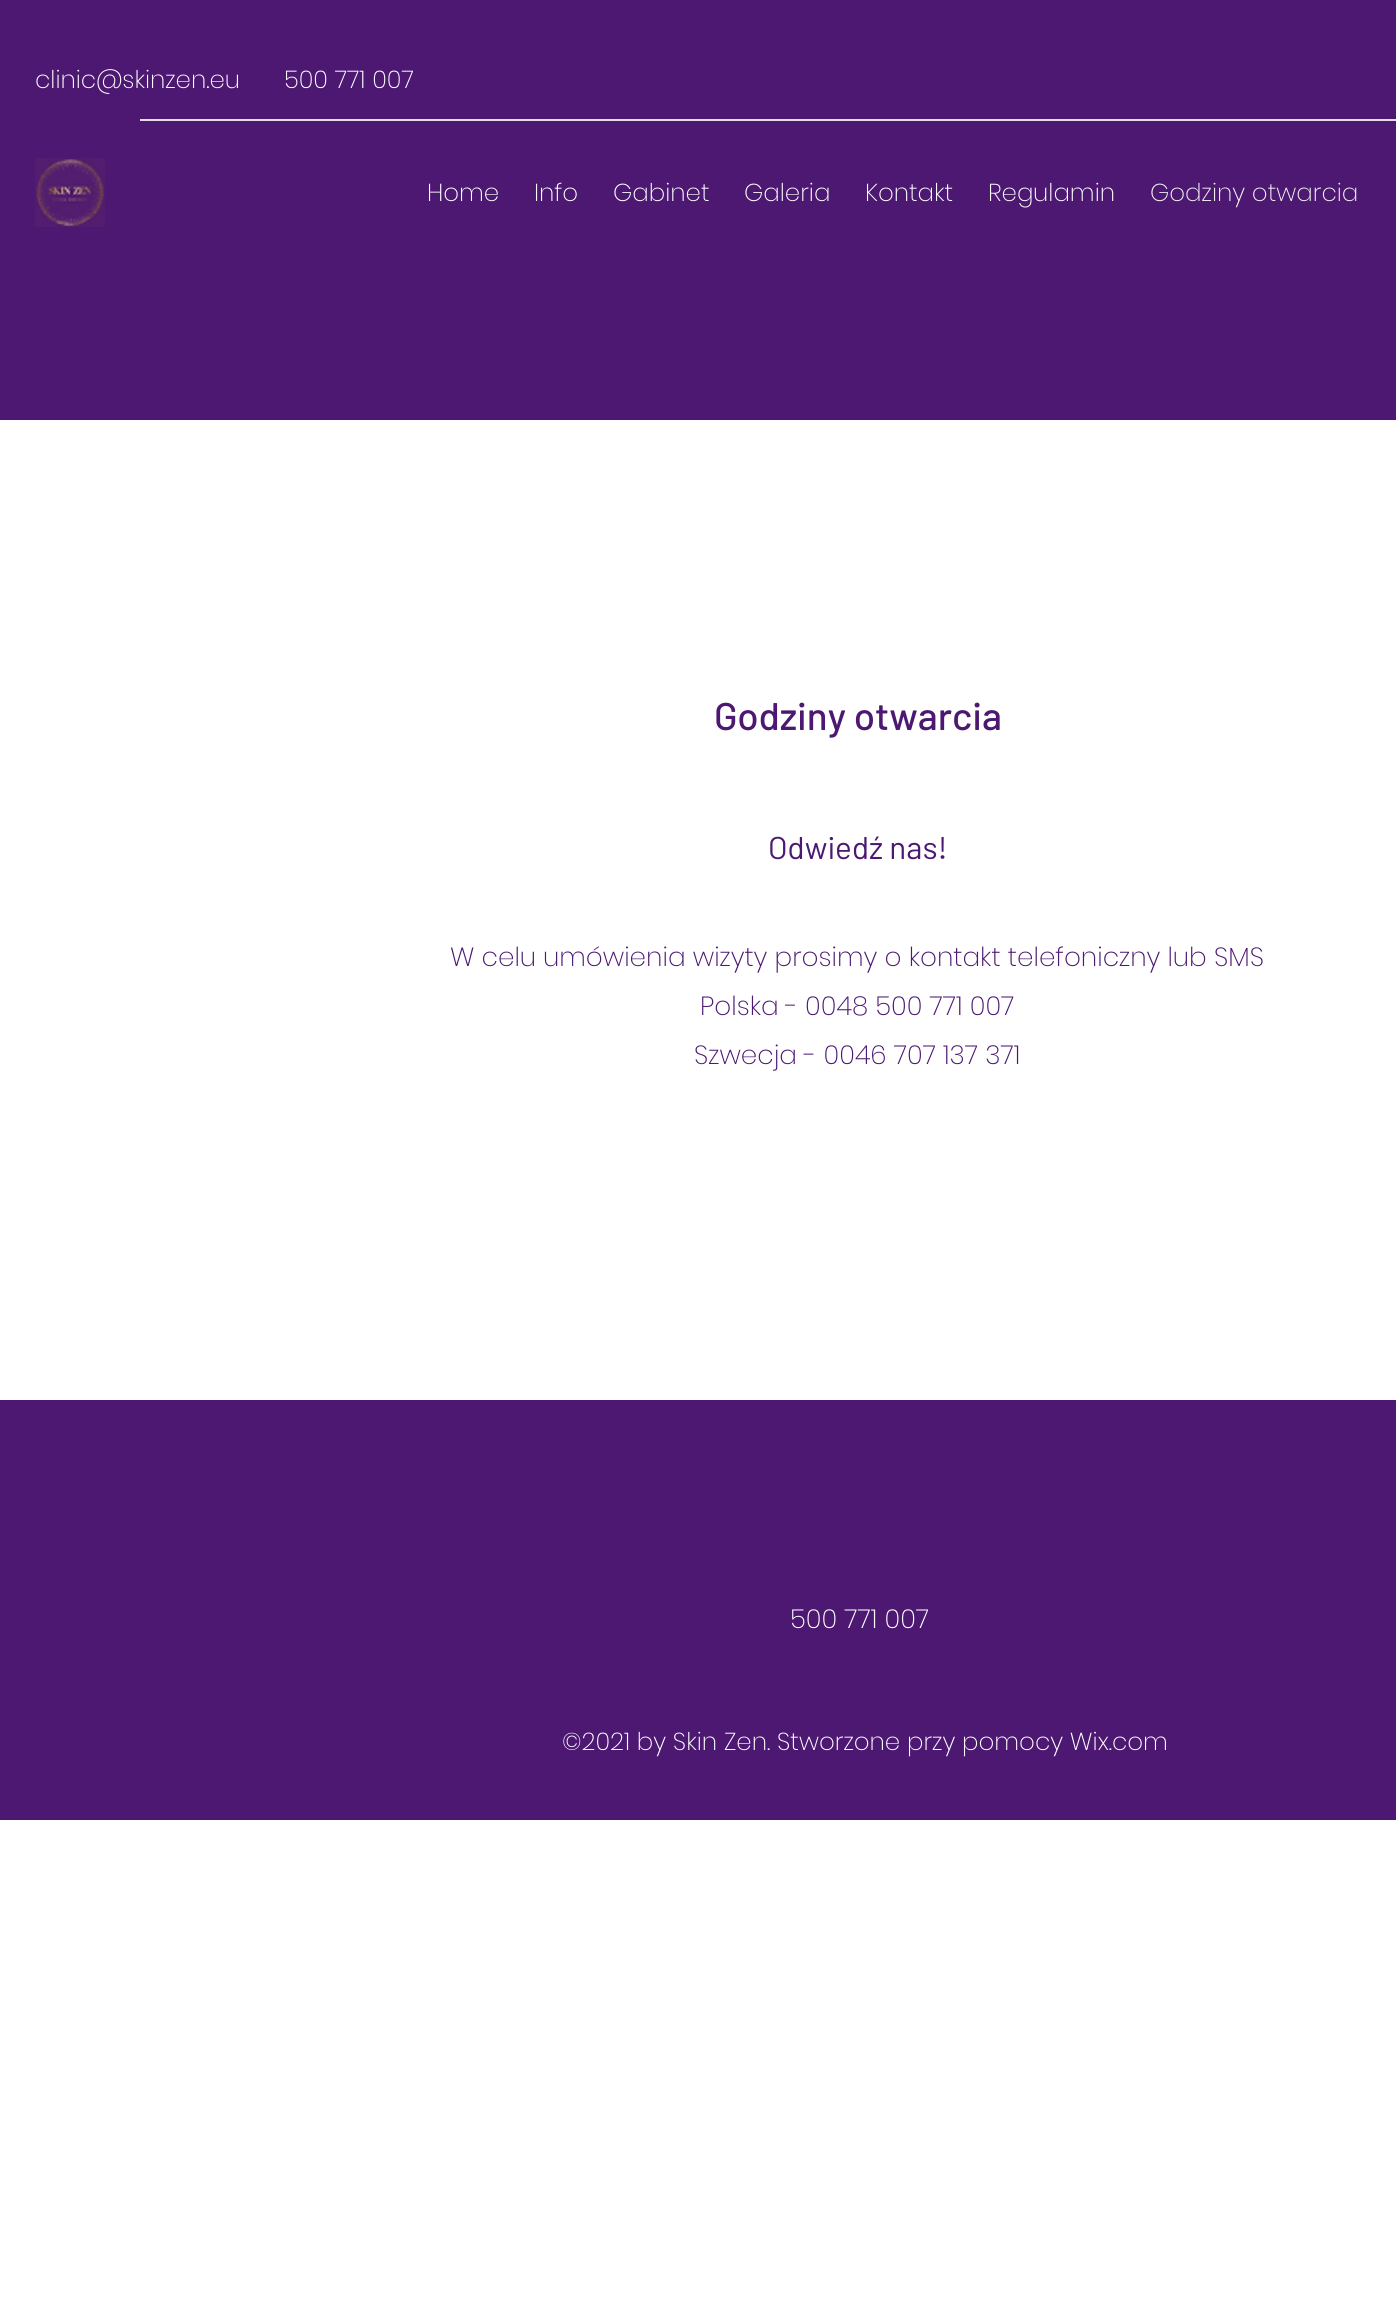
#include <cairo.h>
#include <math.h>
#include <stddef.h>

typedef struct { const char *family; double size; int italic, bold; unsigned color; } style_t;
static cairo_t *ctx;

static void ink(unsigned color) {
    cairo_set_source_rgb(ctx, (color >> 16) / 255.0, (color >> 8 & 255) / 255.0, (color & 255) / 255.0);
}

static void write(double x, double y, const char *s, const style_t *st) {
    cairo_select_font_face(ctx, st->family, st->italic ? CAIRO_FONT_SLANT_ITALIC : CAIRO_FONT_SLANT_NORMAL,
        st->bold ? CAIRO_FONT_WEIGHT_BOLD : CAIRO_FONT_WEIGHT_NORMAL);
    cairo_set_font_size(ctx, st->size);
    ink(st->color);
    cairo_move_to(ctx, x, y);
    cairo_show_text(ctx, s);
}

static void block(double x, double y, double w, double h, unsigned color) {
    ink(color);
    cairo_rectangle(ctx, x, y, w, h);
    cairo_fill(ctx);
}

static void paste(const char *path, double x, double y, double w, double h) {
    cairo_surface_t *image = cairo_image_surface_create_from_png(path);
    cairo_save(ctx);
    cairo_set_source_surface(ctx, image, x, y);
    cairo_rectangle(ctx, x, y, w, h);
    cairo_fill(ctx);
    cairo_restore(ctx);
    cairo_surface_destroy(image);
}

static const style_t s1 = {"Poppins ExtraLight", 24.5, 0, 0, 0xffffff};
static const style_t s2 = {"Poppins ExtraLight", 24.5, 0, 0, 0xf0f0f0};
static const style_t s3 = {"Barlow Medium", 38.5, 0, 0, 0x4c1872};
static const style_t s4 = {"Barlow", 31.5, 0, 0, 0x4c1872};
static const style_t s5 = {"Poppins ExtraLight", 26.25, 0, 0, 0x4c1872};
static const style_t s6 = {"Poppins ExtraLight", 26.25, 0, 0, 0xffffff};

int main(void) {
    cairo_surface_t *surface = cairo_image_surface_create(CAIRO_FORMAT_RGB24, 1396, 2319);
    ctx = cairo_create(surface);
    cairo_font_options_t *options = cairo_font_options_create();
    cairo_font_options_set_hint_metrics(options, CAIRO_HINT_METRICS_OFF);
    cairo_font_options_set_hint_style(options, CAIRO_HINT_STYLE_NONE);
    cairo_set_font_options(ctx, options);
    cairo_set_miter_limit(ctx, 4);
    ink(0xffffff);
    cairo_paint(ctx);
    block(0, 0, 1396, 1820, 0x4c1872);
    write(35, 88, "clinic@skinzen.eu", &s1);
    write(284, 88, "500 771 007", &s1);
    block(140, 119, 1256, 2, 0xe4dcea);
    paste("pic1.png", 35, 158, 70, 69);
    write(427, 201, "Home", &s1);
    write(534, 201, "Info", &s1);
    write(613, 201, "Gabinet", &s1);
    write(744, 201, "Galeria", &s1);
    write(865, 201, "Kontakt", &s1);
    write(988, 201, "Regulamin", &s1);
    write(1150, 201, "Godziny otwarcia", &s2);
    block(0, 420, 1396, 980, 0xffffff);
    write(714, 730, "Godziny otwarcia", &s3);
    write(768, 859, "Odwiedź nas!", &s4);
    write(450, 966, "W celu umówienia wizyty prosimy o kontakt telefoniczny lub SMS", &s5);
    write(700, 1015, "Polska - 0048 500 771 007", &s5);
    write(694, 1064, "Szwecja - 0046 707 137 371", &s5);
    write(790, 1628, "500 771 007", &s6);
    write(562, 1750, "©2021 by Skin Zen. Stworzone przy pomocy Wix.com", &s1);
    cairo_surface_write_to_png(surface, "screenshot.png");
    cairo_font_options_destroy(options);
    cairo_destroy(ctx);
    cairo_surface_destroy(surface);
    return 0;
}
